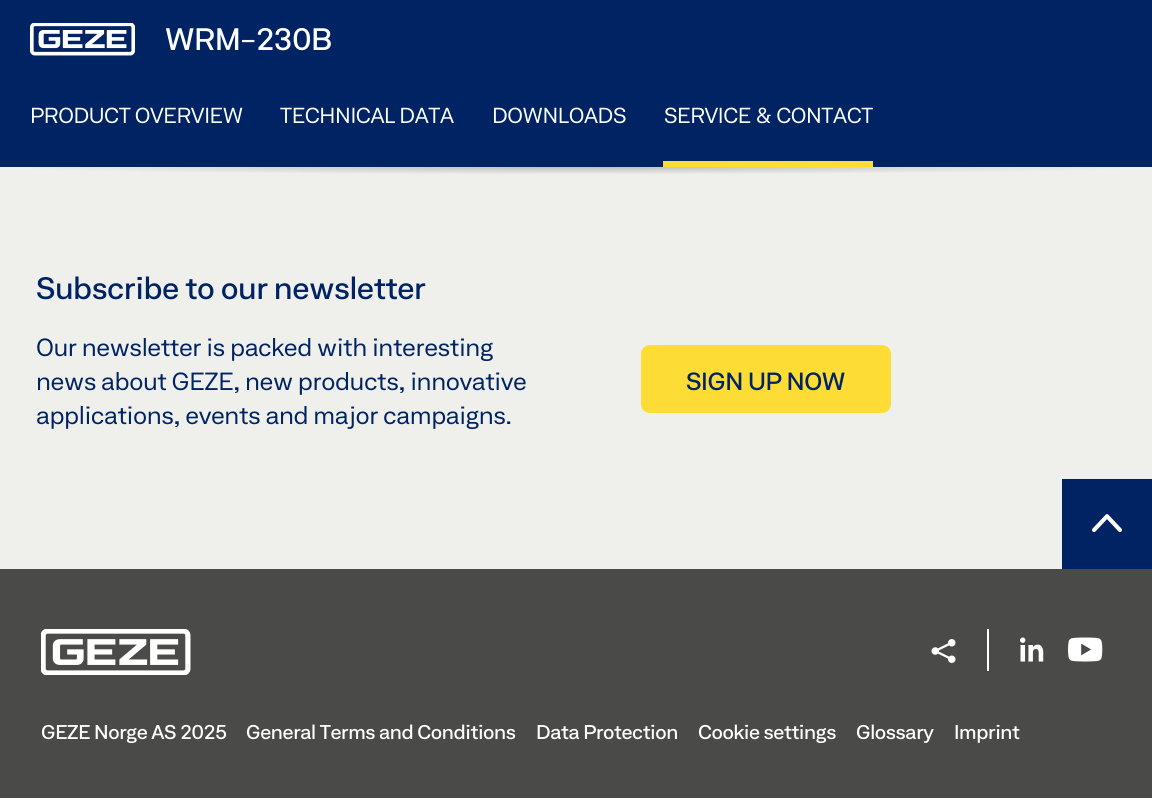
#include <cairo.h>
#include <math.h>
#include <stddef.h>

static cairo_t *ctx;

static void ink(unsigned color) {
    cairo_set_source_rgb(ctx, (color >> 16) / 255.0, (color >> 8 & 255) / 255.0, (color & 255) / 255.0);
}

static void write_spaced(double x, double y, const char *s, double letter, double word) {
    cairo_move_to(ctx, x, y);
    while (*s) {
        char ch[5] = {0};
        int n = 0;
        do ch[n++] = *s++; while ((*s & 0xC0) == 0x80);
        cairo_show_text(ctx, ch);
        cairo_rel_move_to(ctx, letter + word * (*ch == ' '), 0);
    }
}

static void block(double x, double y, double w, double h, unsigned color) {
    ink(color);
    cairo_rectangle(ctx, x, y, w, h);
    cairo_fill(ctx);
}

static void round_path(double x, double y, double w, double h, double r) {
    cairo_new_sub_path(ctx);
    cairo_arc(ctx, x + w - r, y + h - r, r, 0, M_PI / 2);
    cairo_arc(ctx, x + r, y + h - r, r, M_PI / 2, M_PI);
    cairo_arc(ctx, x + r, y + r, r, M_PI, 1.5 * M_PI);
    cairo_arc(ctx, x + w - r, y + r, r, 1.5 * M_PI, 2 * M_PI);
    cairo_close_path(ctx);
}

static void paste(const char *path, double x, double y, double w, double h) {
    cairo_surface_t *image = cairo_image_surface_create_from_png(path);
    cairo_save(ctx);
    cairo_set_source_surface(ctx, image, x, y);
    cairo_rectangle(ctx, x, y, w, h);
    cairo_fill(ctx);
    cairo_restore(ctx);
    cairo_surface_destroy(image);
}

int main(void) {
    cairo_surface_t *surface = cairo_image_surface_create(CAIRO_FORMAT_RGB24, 1152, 798);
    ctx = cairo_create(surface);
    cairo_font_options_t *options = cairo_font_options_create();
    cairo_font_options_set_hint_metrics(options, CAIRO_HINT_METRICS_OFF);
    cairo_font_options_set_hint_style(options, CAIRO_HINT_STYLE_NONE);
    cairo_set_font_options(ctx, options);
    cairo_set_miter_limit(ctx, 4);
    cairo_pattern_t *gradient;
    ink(0xeff0ec);
    cairo_paint(ctx);
    block(0, 0, 1152, 167, 0x002364);
    paste("pic1.png", 30, 23, 105, 33);
    cairo_select_font_face(ctx, "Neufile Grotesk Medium", CAIRO_FONT_SLANT_NORMAL, CAIRO_FONT_WEIGHT_NORMAL);
    cairo_set_font_size(ctx, 30);
    ink(0xffffff);
    write_spaced(165, 50, "WRM-230B", -0.4, 0);
    cairo_select_font_face(ctx, "Neufile Grotesk", CAIRO_FONT_SLANT_NORMAL, CAIRO_FONT_WEIGHT_NORMAL);
    cairo_set_font_size(ctx, 21);
    write_spaced(30, 123, "PRODUCT OVERVIEW", -0.4, 0);
    write_spaced(280, 123, "TECHNICAL DATA", -0.4, 0);
    write_spaced(492, 123, "DOWNLOADS", -0.4, 0);
    write_spaced(664, 123, "SERVICE & CONTACT", -0.4, 0);
    block(663, 161, 210, 6, 0xfddc35);
    gradient = cairo_pattern_create_radial(0, 0, 0, 0, 0, 1);
    cairo_pattern_set_matrix(gradient, &(cairo_matrix_t){1.0 / 576, 0, 0, 1.0 / 7.5, -1.0 * 576 / 576, -1.0 * 167 / 7.5});
    cairo_pattern_add_color_stop_rgba(gradient, 0, 0.745, 0.745, 0.733, 1);
    cairo_pattern_add_color_stop_rgba(gradient, 1, 0.937, 0.941, 0.925, 1);
    cairo_set_source(ctx, gradient);
    cairo_pattern_destroy(gradient);
    cairo_rectangle(ctx, 31, 167, 1090, 7);
    cairo_fill(ctx);
    cairo_select_font_face(ctx, "Neufile Grotesk Medium", CAIRO_FONT_SLANT_NORMAL, CAIRO_FONT_WEIGHT_NORMAL);
    cairo_set_font_size(ctx, 30);
    ink(0x002364);
    write_spaced(36, 299, "Subscribe to our newsletter", -0.4, 0);
    cairo_select_font_face(ctx, "Neufile Grotesk", CAIRO_FONT_SLANT_NORMAL, CAIRO_FONT_WEIGHT_NORMAL);
    cairo_set_font_size(ctx, 24);
    write_spaced(36, 356, "Our newsletter is packed with interesting", -0.4, 0);
    write_spaced(36, 390, "news about GEZE, new products, innovative", -0.4, 0);
    write_spaced(36, 424, "applications, events and major campaigns.", -0.4, 0);
    ink(0xfddc35);
    round_path(641, 345, 250, 68, 9);
    cairo_fill(ctx);
    cairo_select_font_face(ctx, "Neufile Grotesk Medium", CAIRO_FONT_SLANT_NORMAL, CAIRO_FONT_WEIGHT_NORMAL);
    ink(0x002364);
    write_spaced(686, 390, "SIGN UP NOW", -0.4, 0);
    block(0, 569, 1152, 229, 0x4a4a48);
    block(1062, 479, 90, 90, 0x002364);
    paste("pic2.png", 1092, 514, 30, 19);
    paste("pic3.png", 41, 629, 150, 46);
    block(987, 629, 2, 42, 0xffffff);
    paste("pic4.png", 931, 639, 25, 24);
    paste("pic5.png", 1020, 637, 24, 25);
    paste("pic6.png", 1068, 637, 35, 25);
    cairo_set_font_size(ctx, 19.25);
    write_spaced(41, 739, "GEZE Norge AS 2025", -0.4, 0);
    write_spaced(246, 739, "General Terms and Conditions", -0.4, 0);
    write_spaced(536, 739, "Data Protection", -0.4, 0);
    write_spaced(698, 739, "Cookie settings", -0.4, 0);
    write_spaced(856, 739, "Glossary", -0.4, 0);
    write_spaced(954, 739, "Imprint", -0.4, 0);
    cairo_surface_write_to_png(surface, "screenshot.png");
    cairo_font_options_destroy(options);
    cairo_destroy(ctx);
    cairo_surface_destroy(surface);
    return 0;
}
